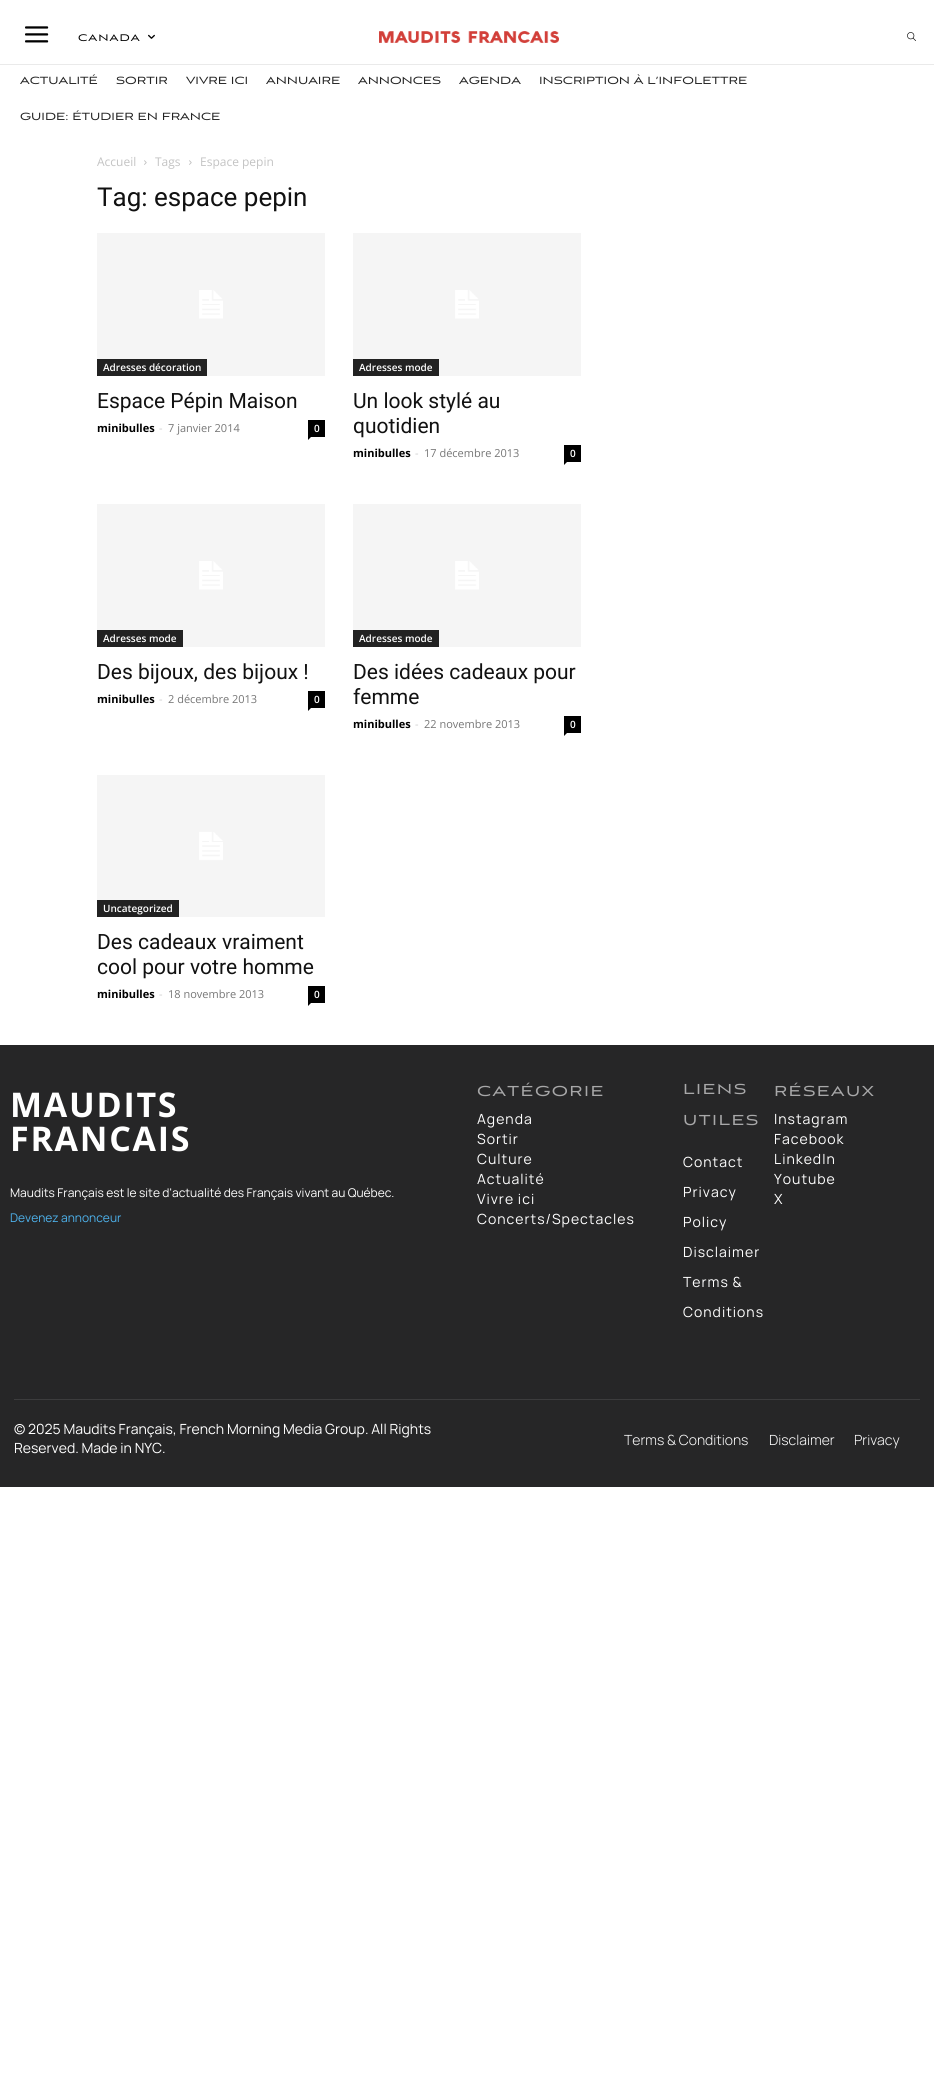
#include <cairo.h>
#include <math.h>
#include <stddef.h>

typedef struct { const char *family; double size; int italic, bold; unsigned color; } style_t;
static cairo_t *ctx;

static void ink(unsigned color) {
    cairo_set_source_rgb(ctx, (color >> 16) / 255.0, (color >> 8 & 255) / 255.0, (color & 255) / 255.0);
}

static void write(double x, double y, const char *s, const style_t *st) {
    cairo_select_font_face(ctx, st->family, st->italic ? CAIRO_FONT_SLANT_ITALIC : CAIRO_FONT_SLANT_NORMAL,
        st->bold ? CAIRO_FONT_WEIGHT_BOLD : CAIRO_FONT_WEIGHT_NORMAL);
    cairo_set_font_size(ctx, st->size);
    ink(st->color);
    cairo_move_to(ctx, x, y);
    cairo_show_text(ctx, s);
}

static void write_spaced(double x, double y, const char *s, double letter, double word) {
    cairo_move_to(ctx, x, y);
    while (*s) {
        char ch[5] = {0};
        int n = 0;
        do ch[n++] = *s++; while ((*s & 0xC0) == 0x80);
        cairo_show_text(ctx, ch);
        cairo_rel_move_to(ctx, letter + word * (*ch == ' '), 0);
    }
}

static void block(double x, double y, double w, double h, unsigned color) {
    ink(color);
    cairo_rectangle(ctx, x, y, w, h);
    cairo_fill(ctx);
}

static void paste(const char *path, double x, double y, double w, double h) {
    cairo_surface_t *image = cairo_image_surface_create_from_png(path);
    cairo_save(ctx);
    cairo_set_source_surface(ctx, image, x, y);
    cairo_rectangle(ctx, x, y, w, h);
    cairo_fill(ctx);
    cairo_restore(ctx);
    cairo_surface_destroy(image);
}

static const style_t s1 = {"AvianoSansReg", 13, 0, 0, 0x242424};
static const style_t s2 = {"Open Sans", 12, 0, 0, 0xc3c3c3};
static const style_t s3 = {"Roboto", 26, 0, 0, 0x111111};
static const style_t s4 = {"Open Sans SemiBold", 10, 0, 0, 0xffffff};
static const style_t s5 = {"Roboto", 21, 0, 0, 0x111111};
static const style_t s6 = {"Open Sans", 11, 0, 1, 0x000000};
static const style_t s7 = {"Open Sans", 11, 0, 0, 0xcccccc};
static const style_t s8 = {"Open Sans", 11, 0, 0, 0x767676};
static const style_t s9 = {"Manrope", 12, 0, 0, 0xffffff};
static const style_t s10 = {"Manrope", 12, 0, 0, 0x4db2ec};
static const style_t s11 = {"Manrope", 14, 0, 0, 0xffffff};
static const style_t s12 = {"Manrope Light", 14, 0, 0, 0xffffff};

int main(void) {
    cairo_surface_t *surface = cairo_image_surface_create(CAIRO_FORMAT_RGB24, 934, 2091);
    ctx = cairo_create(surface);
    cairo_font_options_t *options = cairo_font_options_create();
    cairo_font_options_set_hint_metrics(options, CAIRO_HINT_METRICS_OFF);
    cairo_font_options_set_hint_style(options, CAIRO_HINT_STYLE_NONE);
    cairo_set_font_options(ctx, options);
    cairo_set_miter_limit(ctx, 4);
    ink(0xffffff);
    cairo_paint(ctx);
    paste("pic1.png", 25, 26, 24, 17);
    cairo_select_font_face(ctx, "AvianoSansReg", CAIRO_FONT_SLANT_NORMAL, CAIRO_FONT_WEIGHT_NORMAL);
    cairo_set_font_size(ctx, 12);
    ink(0x000000);
    write_spaced(78, 41, "CANADA", 1, 0);
    paste("pic2.png", 148, 34, 7, 5);
    paste("pic3.png", 379, 31, 180, 12);
    paste("pic4.png", 907, 32, 9, 9);
    block(0, 64, 934, 1, 0xeaeaea);
    write(20, 84, "ACTUALITÉ", &s1);
    write(116, 84, "SORTIR", &s1);
    write(186, 84, "VIVRE ICI", &s1);
    write(266, 84, "ANNUAIRE", &s1);
    write(358, 84, "ANNONCES", &s1);
    write(459, 84, "AGENDA", &s1);
    write(539, 84, "INSCRIPTION À L’INFOLETTRE", &s1);
    write(20, 120, "GUIDE: ÉTUDIER EN FRANCE", &s1);
    write(97, 166, "Accueil", &s2);
    paste("pic5.png", 144, 160, 3, 5);
    write(155, 166, "Tags", &s2);
    paste("pic5.png", 189, 160, 3, 5);
    write(200, 166, "Espace pepin", &s2);
    write(97, 206, "Tag: espace pepin", &s3);
    paste("pic6.png", 97, 233, 228, 143);
    block(97, 359, 110, 17, 0x222222);
    write(103, 371, "Adresses décoration", &s4);
    write(97, 408, "Espace Pépin Maison", &s5);
    write(97, 432, "minibulles", &s6);
    write(159, 432, "-", &s7);
    write(168, 432, "7 janvier 2014", &s8);
    block(308, 420, 17, 17, 0x000000);
    write(314, 432, "0", &s4);
    ink(0x000000);
    cairo_new_path(ctx);
    cairo_move_to(ctx, 308, 437);
    cairo_line_to(ctx, 311, 437);
    cairo_line_to(ctx, 308, 440);
    cairo_close_path(ctx);
    cairo_fill(ctx);
    paste("pic7.png", 353, 233, 228, 143);
    block(353, 359, 86, 17, 0x222222);
    write(359, 371, "Adresses mode", &s4);
    write(353, 408, "Un look stylé au", &s5);
    write(353, 433, "quotidien", &s5);
    write(353, 457, "minibulles", &s6);
    write(415, 457, "-", &s7);
    write(424, 457, "17 décembre 2013", &s8);
    block(564, 445, 17, 17, 0x000000);
    write(570, 457, "0", &s4);
    ink(0x000000);
    cairo_new_path(ctx);
    cairo_move_to(ctx, 564, 462);
    cairo_line_to(ctx, 567, 462);
    cairo_line_to(ctx, 564, 465);
    cairo_close_path(ctx);
    cairo_fill(ctx);
    paste("pic6.png", 97, 504, 228, 143);
    block(97, 630, 86, 17, 0x222222);
    write(103, 642, "Adresses mode", &s4);
    write(97, 679, "Des bijoux, des bijoux !", &s5);
    write(97, 703, "minibulles", &s6);
    write(159, 703, "-", &s7);
    write(168, 703, "2 décembre 2013", &s8);
    block(308, 691, 17, 17, 0x000000);
    write(314, 703, "0", &s4);
    ink(0x000000);
    cairo_new_path(ctx);
    cairo_move_to(ctx, 308, 708);
    cairo_line_to(ctx, 311, 708);
    cairo_line_to(ctx, 308, 711);
    cairo_close_path(ctx);
    cairo_fill(ctx);
    paste("pic7.png", 353, 504, 228, 143);
    block(353, 630, 86, 17, 0x222222);
    write(359, 642, "Adresses mode", &s4);
    write(353, 679, "Des idées cadeaux pour", &s5);
    write(353, 704, "femme", &s5);
    write(353, 728, "minibulles", &s6);
    write(415, 728, "-", &s7);
    write(424, 728, "22 novembre 2013", &s8);
    block(564, 716, 17, 17, 0x000000);
    write(570, 728, "0", &s4);
    ink(0x000000);
    cairo_new_path(ctx);
    cairo_move_to(ctx, 564, 733);
    cairo_line_to(ctx, 567, 733);
    cairo_line_to(ctx, 564, 736);
    cairo_close_path(ctx);
    cairo_fill(ctx);
    paste("pic8.png", 97, 775, 228, 142);
    block(97, 900, 82, 17, 0x222222);
    write(103, 912, "Uncategorized", &s4);
    write(97, 949, "Des cadeaux vraiment", &s5);
    write(97, 974, "cool pour votre homme", &s5);
    write(97, 998, "minibulles", &s6);
    write(159, 998, "-", &s7);
    write(168, 998, "18 novembre 2013", &s8);
    block(308, 986, 17, 17, 0x000000);
    write(314, 998, "0", &s4);
    ink(0x000000);
    cairo_new_path(ctx);
    cairo_move_to(ctx, 308, 1003);
    cairo_line_to(ctx, 311, 1003);
    cairo_line_to(ctx, 308, 1006);
    cairo_close_path(ctx);
    cairo_fill(ctx);
    block(0, 1045, 934, 442, 0x262627);
    cairo_select_font_face(ctx, "Open Sans", CAIRO_FONT_SLANT_NORMAL, CAIRO_FONT_WEIGHT_BOLD);
    cairo_set_font_size(ctx, 34);
    ink(0xffffff);
    write_spaced(10, 1117, "MAUDITS", 1.75, 0);
    write_spaced(10, 1151, "FRANCAIS", 1.75, 0);
    write(10, 1197, "Maudits Français est le site d'actualité des Français vivant au Québec.", &s9);
    write(10, 1222, "Devenez annonceur", &s10);
    cairo_select_font_face(ctx, "AvianoSansReg", CAIRO_FONT_SLANT_NORMAL, CAIRO_FONT_WEIGHT_NORMAL);
    cairo_set_font_size(ctx, 18);
    ink(0xa8a8a9);
    write_spaced(477, 1096, "CATÉGORIE", 1.5, 0);
    cairo_select_font_face(ctx, "Manrope", CAIRO_FONT_SLANT_NORMAL, CAIRO_FONT_WEIGHT_NORMAL);
    cairo_set_font_size(ctx, 14);
    ink(0xffffff);
    write_spaced(477, 1124, "Agenda", 1, 0);
    write_spaced(477, 1144, "Sortir", 1, 0);
    write_spaced(477, 1164, "Culture", 1, 0);
    write_spaced(477, 1184, "Actualité", 1, 0);
    write_spaced(477, 1204, "Vivre ici", 1, 0);
    write_spaced(477, 1224, "Concerts/Spectacles", 1, 0);
    cairo_select_font_face(ctx, "AvianoSansReg", CAIRO_FONT_SLANT_NORMAL, CAIRO_FONT_WEIGHT_NORMAL);
    cairo_set_font_size(ctx, 18);
    ink(0xa8a8a9);
    write_spaced(683, 1094, "LIENS", 1.5, 0);
    write_spaced(683, 1125, "UTILES", 1.5, 0);
    cairo_select_font_face(ctx, "Manrope", CAIRO_FONT_SLANT_NORMAL, CAIRO_FONT_WEIGHT_NORMAL);
    cairo_set_font_size(ctx, 14);
    ink(0xffffff);
    write_spaced(683, 1167, "Contact", 1, 0);
    write_spaced(683, 1197, "Privacy", 1, 0);
    write_spaced(683, 1227, "Policy", 1, 0);
    write_spaced(683, 1257, "Disclaimer", 1, 0);
    write_spaced(683, 1287, "Terms &", 1, 0);
    write_spaced(683, 1317, "Conditions", 1, 0);
    cairo_select_font_face(ctx, "AvianoSansReg", CAIRO_FONT_SLANT_NORMAL, CAIRO_FONT_WEIGHT_NORMAL);
    cairo_set_font_size(ctx, 18);
    ink(0xa8a8a9);
    write_spaced(774, 1096, "RÉSEAUX", 1.5, 0);
    cairo_select_font_face(ctx, "Manrope", CAIRO_FONT_SLANT_NORMAL, CAIRO_FONT_WEIGHT_NORMAL);
    cairo_set_font_size(ctx, 14);
    ink(0xffffff);
    write_spaced(774, 1124, "Instagram", 1, 0);
    write_spaced(774, 1144, "Facebook", 1, 0);
    write_spaced(774, 1164, "LinkedIn", 1, 0);
    write_spaced(774, 1184, "Youtube", 1, 0);
    write_spaced(774, 1204, "X", 1, 0);
    block(14, 1399, 906, 1, 0x3c3c3d);
    write(14, 1434, "© 2025 Maudits Français, French Morning Media Group. All Rights", &s11);
    write(14, 1453, "Reserved. Made in NYC.", &s11);
    write(624, 1445, "Terms & Conditions", &s12);
    write(769, 1445, "Disclaimer", &s12);
    write(854, 1445, "Privacy", &s12);
    cairo_surface_write_to_png(surface, "screenshot.png");
    cairo_font_options_destroy(options);
    cairo_destroy(ctx);
    cairo_surface_destroy(surface);
    return 0;
}
